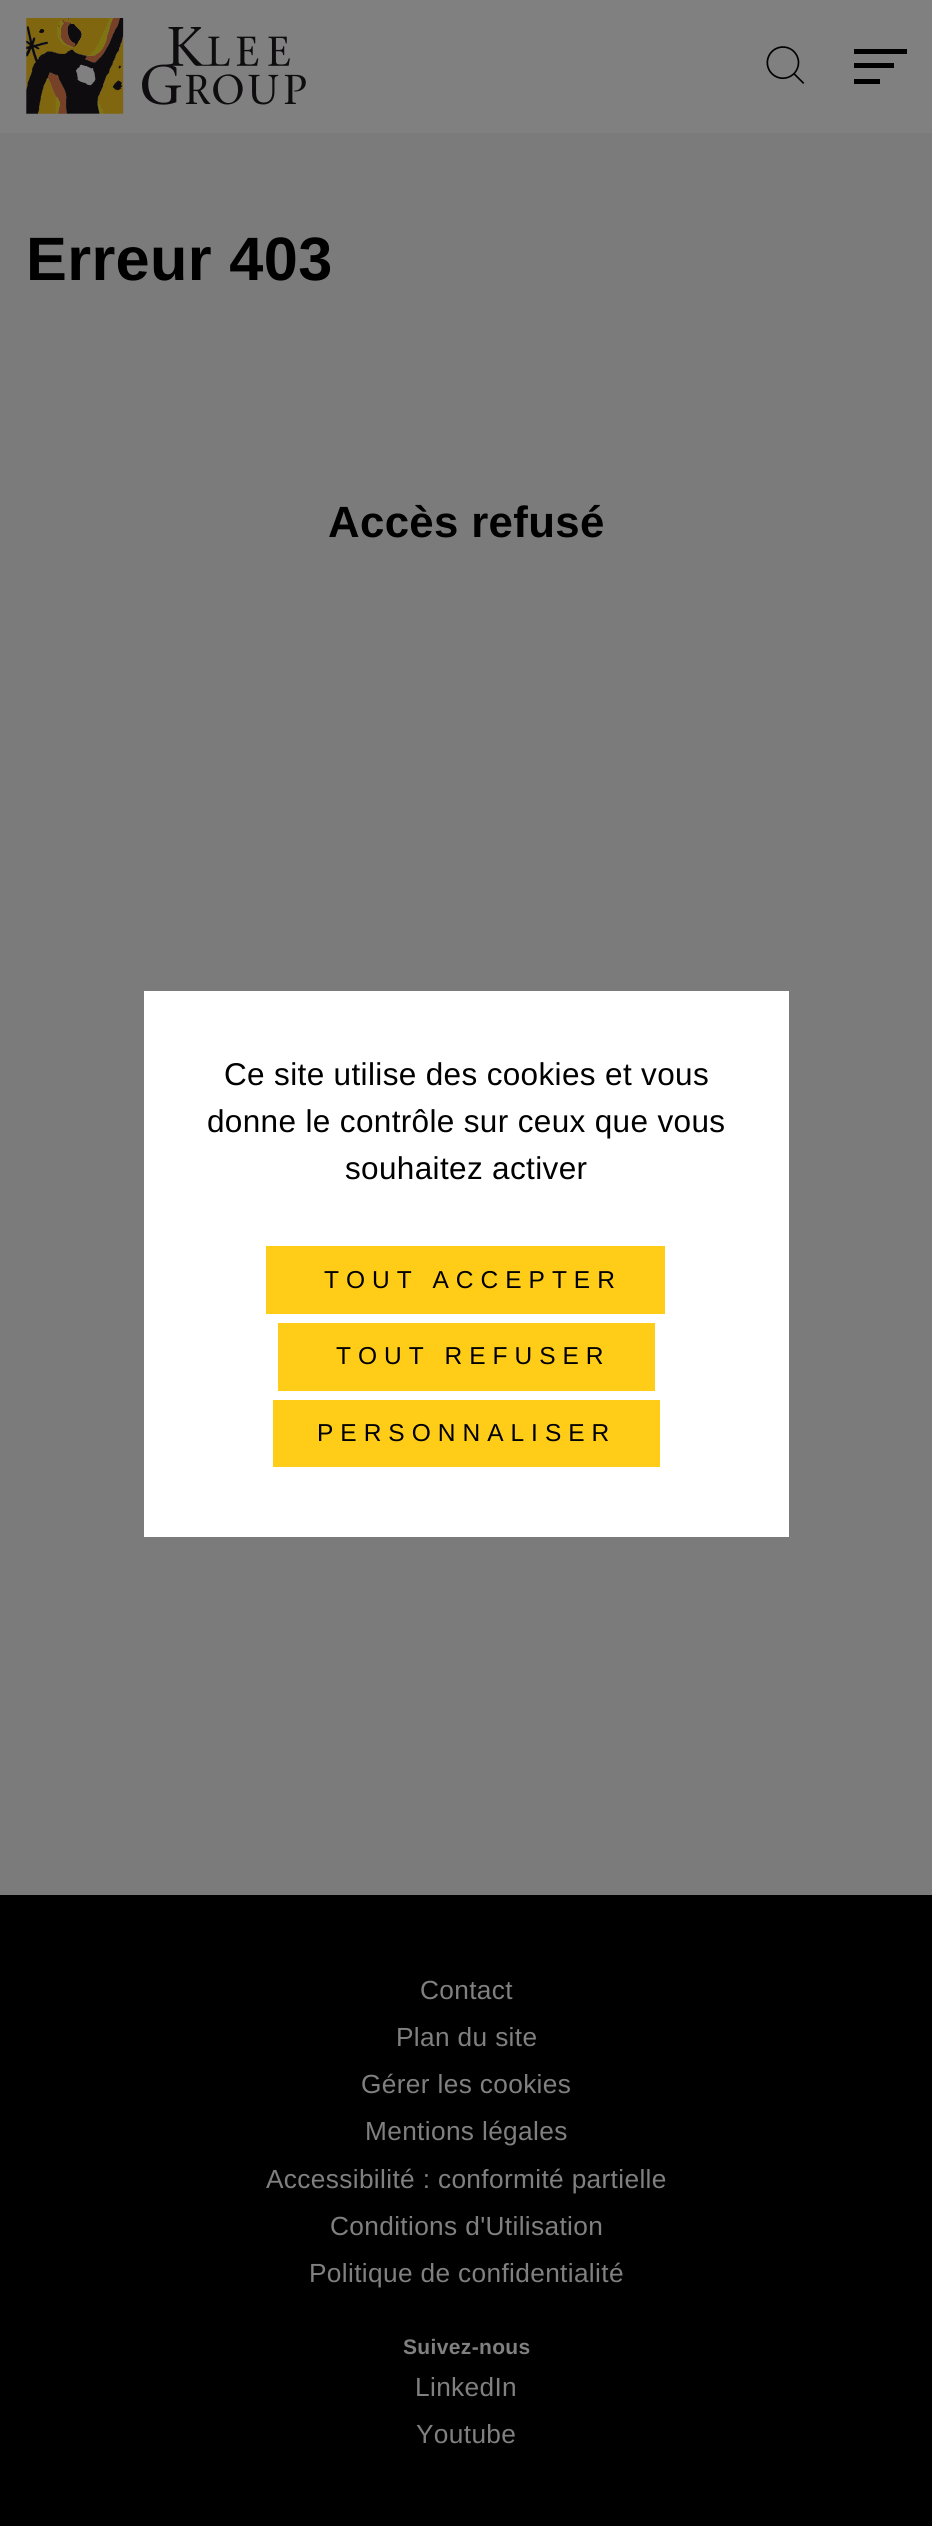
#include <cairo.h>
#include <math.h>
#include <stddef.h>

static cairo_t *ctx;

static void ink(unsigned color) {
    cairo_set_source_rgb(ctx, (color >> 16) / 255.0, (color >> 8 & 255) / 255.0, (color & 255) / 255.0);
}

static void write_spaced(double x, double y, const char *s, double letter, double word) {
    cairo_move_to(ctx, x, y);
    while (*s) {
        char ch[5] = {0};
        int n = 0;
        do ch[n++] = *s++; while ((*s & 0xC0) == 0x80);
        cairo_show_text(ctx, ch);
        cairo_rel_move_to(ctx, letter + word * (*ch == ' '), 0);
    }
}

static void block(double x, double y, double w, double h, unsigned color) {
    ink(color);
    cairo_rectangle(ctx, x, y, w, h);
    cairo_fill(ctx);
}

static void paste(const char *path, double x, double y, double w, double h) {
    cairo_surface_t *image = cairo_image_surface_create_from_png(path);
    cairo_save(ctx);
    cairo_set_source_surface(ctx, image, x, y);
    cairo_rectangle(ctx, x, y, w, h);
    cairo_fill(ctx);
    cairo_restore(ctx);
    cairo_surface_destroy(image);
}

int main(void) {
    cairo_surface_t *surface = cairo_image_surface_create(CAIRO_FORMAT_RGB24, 932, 2526);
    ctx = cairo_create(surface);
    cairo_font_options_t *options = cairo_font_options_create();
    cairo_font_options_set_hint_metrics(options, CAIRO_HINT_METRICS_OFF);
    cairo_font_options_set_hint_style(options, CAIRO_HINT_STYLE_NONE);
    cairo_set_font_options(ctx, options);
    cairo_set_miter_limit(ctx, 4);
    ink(0x7b7b7b);
    cairo_paint(ctx);
    block(0, 0, 932, 133, 0x808080);
    paste("pic1.png", 26, 18, 280, 96);
    paste("pic2.png", 766, 46, 39, 38);
    block(854, 49, 53, 5, 0x000000);
    block(854, 63, 40, 5, 0x000000);
    block(854, 79, 26, 5, 0x000000);
    cairo_select_font_face(ctx, "Liberation Sans", CAIRO_FONT_SLANT_NORMAL, CAIRO_FONT_WEIGHT_BOLD);
    cairo_set_font_size(ctx, 61.25);
    write_spaced(26, 280, "Erreur 403", 0.35, 0);
    cairo_set_font_size(ctx, 43.75);
    write_spaced(328, 537, "Accès refusé", 0.35, 0);
    block(0, 1895, 932, 631, 0x000000);
    cairo_select_font_face(ctx, "Liberation Sans", CAIRO_FONT_SLANT_NORMAL, CAIRO_FONT_WEIGHT_NORMAL);
    cairo_set_font_size(ctx, 26.25);
    ink(0x808080);
    write_spaced(420, 1999, "Contact", 0.35, 0);
    write_spaced(396, 2046, "Plan du site", 0.35, 0);
    write_spaced(361, 2093, "Gérer les cookies", 0.35, 0);
    write_spaced(365, 2140, "Mentions légales", 0.35, 0);
    write_spaced(266, 2188, "Accessibilité : conformité partielle", 0.35, 0);
    write_spaced(330, 2235, "Conditions d'Utilisation", 0.35, 0);
    write_spaced(309, 2282, "Politique de confidentialité", 0.35, 0);
    cairo_select_font_face(ctx, "Liberation Sans", CAIRO_FONT_SLANT_NORMAL, CAIRO_FONT_WEIGHT_BOLD);
    cairo_set_font_size(ctx, 21);
    write_spaced(403, 2354, "Suivez-nous", 0.35, 0);
    cairo_select_font_face(ctx, "Liberation Sans", CAIRO_FONT_SLANT_NORMAL, CAIRO_FONT_WEIGHT_NORMAL);
    cairo_set_font_size(ctx, 26.25);
    write_spaced(415, 2396, "LinkedIn", 0.35, 0);
    write_spaced(416, 2443, "Youtube", 0.35, 0);
    block(144, 991, 645, 546, 0xffffff);
    cairo_set_font_size(ctx, 31.5);
    ink(0x000000);
    write_spaced(224, 1085, "Ce site utilise des cookies et vous", 0.35, 0);
    write_spaced(207, 1132, "donne le contrôle sur ceux que vous", 0.35, 0);
    write_spaced(345, 1179, "souhaitez activer", 0.35, 0);
    block(266, 1246, 399, 68, 0xffcc18);
    cairo_set_font_size(ctx, 24.5);
    ink(0x000000);
    write_spaced(324, 1288, "TOUT ACCEPTER", 7, 0);
    block(278, 1323, 377, 68, 0xffcc18);
    ink(0x000000);
    write_spaced(336, 1364, "TOUT REFUSER", 7, 0);
    block(273, 1400, 387, 67, 0xffcc18);
    ink(0x000000);
    write_spaced(317, 1441, "PERSONNALISER", 7, 0);
    cairo_surface_write_to_png(surface, "screenshot.png");
    cairo_font_options_destroy(options);
    cairo_destroy(ctx);
    cairo_surface_destroy(surface);
    return 0;
}
